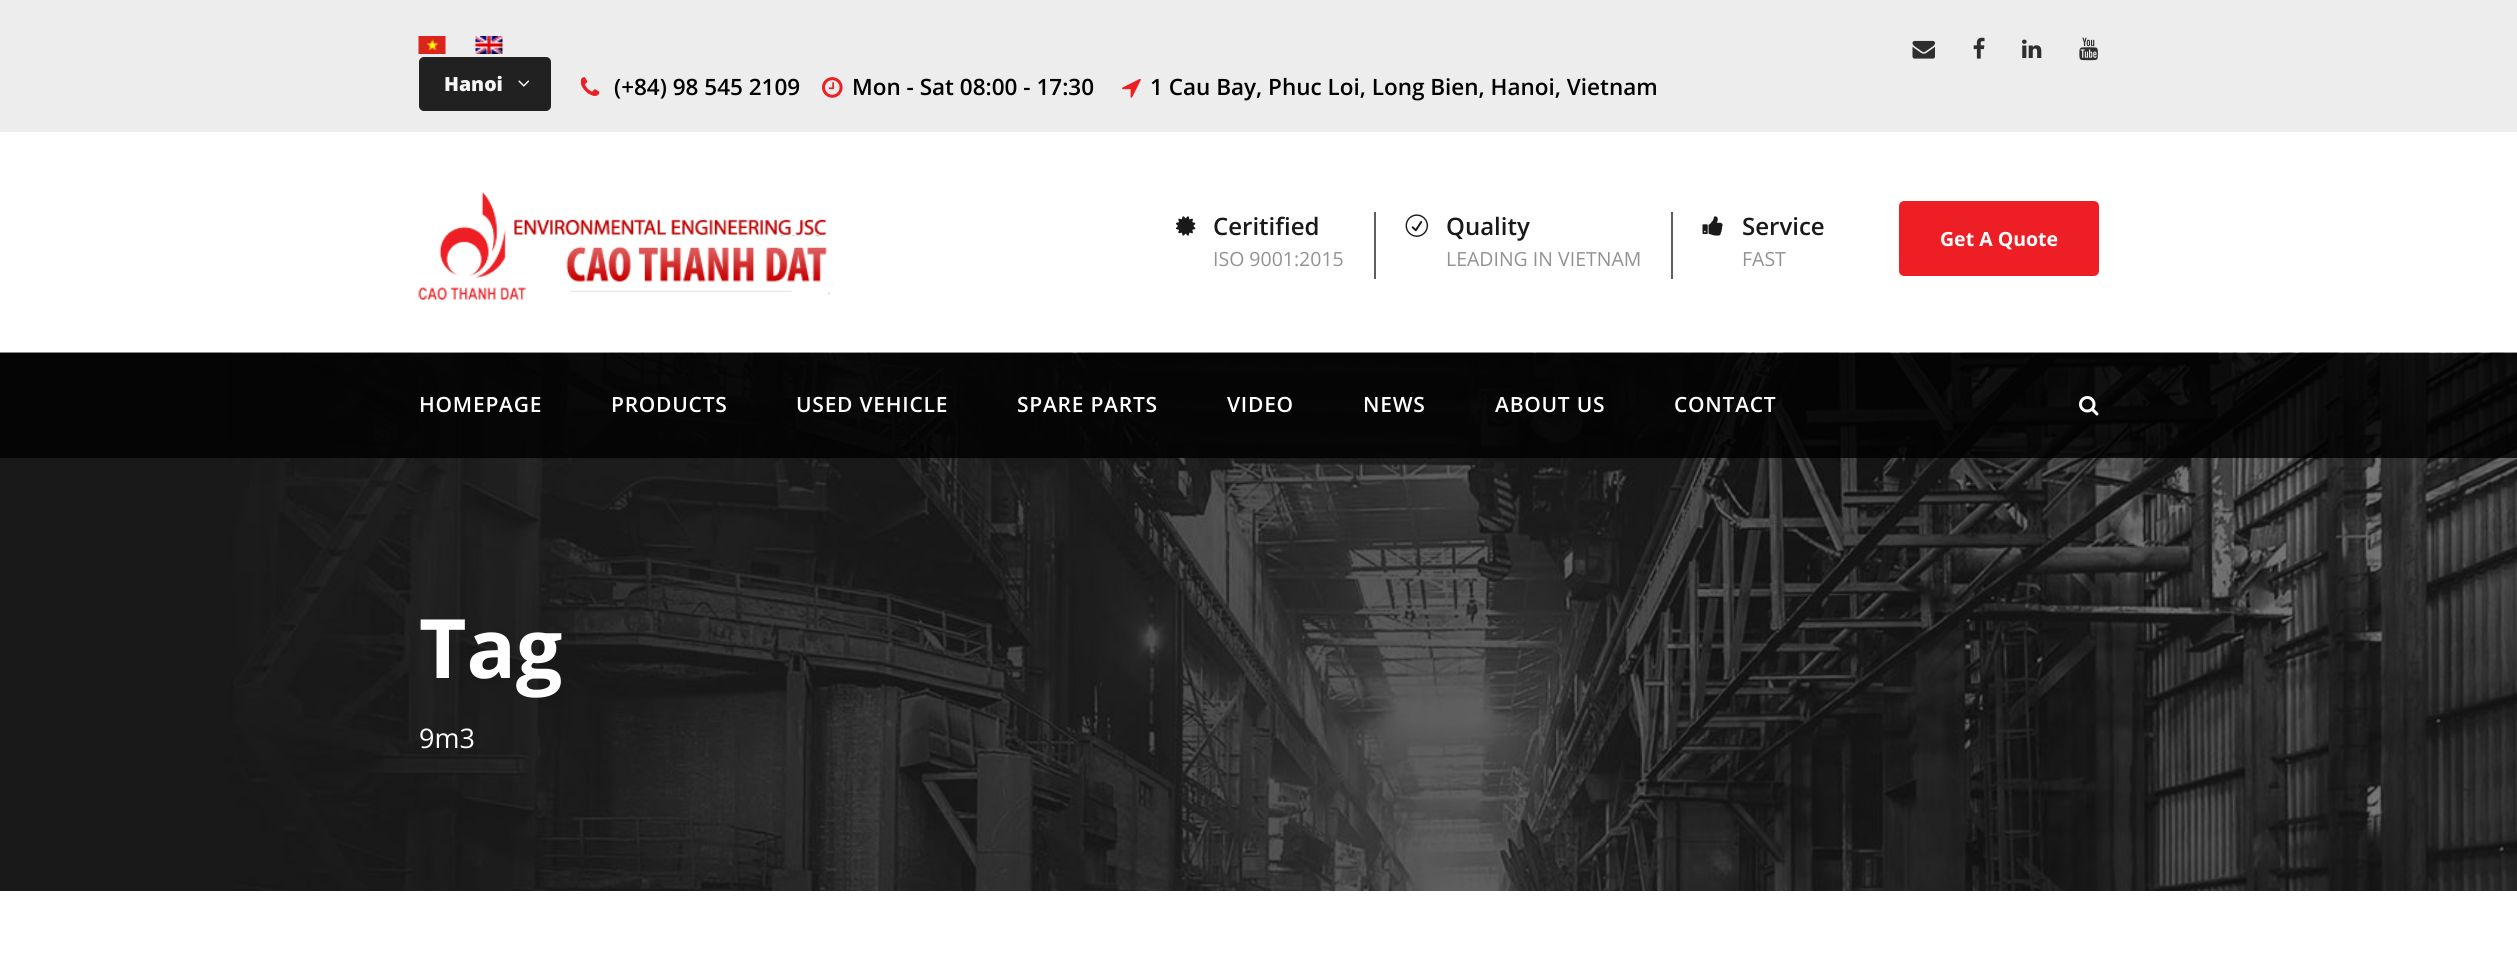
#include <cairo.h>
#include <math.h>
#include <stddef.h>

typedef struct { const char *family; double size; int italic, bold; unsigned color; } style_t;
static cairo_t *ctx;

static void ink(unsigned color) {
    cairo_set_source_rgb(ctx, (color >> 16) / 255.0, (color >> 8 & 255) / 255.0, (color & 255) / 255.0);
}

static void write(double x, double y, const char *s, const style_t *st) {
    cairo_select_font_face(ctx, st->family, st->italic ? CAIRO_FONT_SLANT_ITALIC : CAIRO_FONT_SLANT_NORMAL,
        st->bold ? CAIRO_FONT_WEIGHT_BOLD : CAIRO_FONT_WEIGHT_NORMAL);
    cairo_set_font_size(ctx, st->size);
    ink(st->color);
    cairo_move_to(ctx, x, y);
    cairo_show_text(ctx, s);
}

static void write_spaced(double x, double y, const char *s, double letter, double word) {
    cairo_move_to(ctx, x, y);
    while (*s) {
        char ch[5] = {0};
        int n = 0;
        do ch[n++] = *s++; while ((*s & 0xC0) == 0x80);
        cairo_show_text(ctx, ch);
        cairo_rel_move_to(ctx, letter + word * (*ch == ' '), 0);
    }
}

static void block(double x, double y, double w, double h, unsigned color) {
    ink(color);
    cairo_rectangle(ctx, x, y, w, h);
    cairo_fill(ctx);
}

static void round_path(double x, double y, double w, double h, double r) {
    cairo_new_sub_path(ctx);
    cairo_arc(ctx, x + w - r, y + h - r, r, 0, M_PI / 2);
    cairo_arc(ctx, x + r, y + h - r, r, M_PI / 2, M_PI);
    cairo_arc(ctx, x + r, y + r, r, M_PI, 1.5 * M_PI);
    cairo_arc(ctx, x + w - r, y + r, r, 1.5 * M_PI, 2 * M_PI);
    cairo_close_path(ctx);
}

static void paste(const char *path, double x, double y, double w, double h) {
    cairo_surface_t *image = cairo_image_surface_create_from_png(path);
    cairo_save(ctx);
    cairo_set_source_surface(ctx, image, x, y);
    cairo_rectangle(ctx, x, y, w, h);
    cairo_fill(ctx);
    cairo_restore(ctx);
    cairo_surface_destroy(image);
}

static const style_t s1 = {"Open Sans ExtraBold", 19.5, 0, 0, 0xf7f7f7};
static const style_t s2 = {"Open Sans SemiBold", 22.5, 0, 0, 0x000000};
static const style_t s3 = {"Open Sans SemiBold", 24, 0, 0, 0x191919};
static const style_t s4 = {"Open Sans", 19.5, 0, 0, 0x929292};
static const style_t s5 = {"Open Sans", 19.5, 0, 1, 0xffffff};
static const style_t s6 = {"Open Sans", 82, 0, 1, 0xffffff};
static const style_t s7 = {"Open Sans", 27, 0, 0, 0xffffff};

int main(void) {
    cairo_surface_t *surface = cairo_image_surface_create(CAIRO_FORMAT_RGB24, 2517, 971);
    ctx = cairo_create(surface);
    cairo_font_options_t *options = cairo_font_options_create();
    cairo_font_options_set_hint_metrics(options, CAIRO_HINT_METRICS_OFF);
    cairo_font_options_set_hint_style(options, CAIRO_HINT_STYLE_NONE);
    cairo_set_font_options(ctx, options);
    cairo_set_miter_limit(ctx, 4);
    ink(0xffffff);
    cairo_paint(ctx);
    block(0, 0, 2517, 132, 0xededed);
    paste("pic1.png", 1912, 40, 23, 19);
    paste("pic2.png", 1973, 37, 12, 22);
    paste("pic3.png", 2022, 39, 20, 19);
    paste("pic4.png", 2079, 37, 19, 24);
    paste("pic5.png", 418, 36, 28, 18);
    paste("pic6.png", 475, 36, 28, 18);
    ink(0x212121);
    round_path(419, 57, 132, 54, 5);
    cairo_fill(ctx);
    write(444, 91, "Hanoi", &s1);
    paste("pic7.png", 518, 80, 12, 7);
    paste("pic8.png", 581, 77, 19, 19);
    write(614, 95, "(+84) 98 545 2109", &s2);
    paste("pic9.png", 822, 77, 21, 21);
    write(852, 95, "Mon - Sat 08:00 - 17:30", &s2);
    paste("pic10.png", 1122, 78, 19, 20);
    write(1150, 95, "1 Cau Bay, Phuc Loi, Long Bien, Hanoi, Vietnam", &s2);
    paste("pic11.png", 418, 192, 415, 108);
    paste("pic12.png", 1176, 216, 20, 20);
    write(1213, 235, "Ceritified", &s3);
    write(1213, 266, "ISO 9001:2015", &s4);
    block(1374, 212, 2, 67, 0x5e5e5e);
    paste("pic13.png", 1405, 214, 24, 23);
    write(1446, 235, "Quality", &s3);
    write(1446, 266, "LEADING IN VIETNAM", &s4);
    block(1671, 212, 2, 67, 0x5e5e5e);
    paste("pic14.png", 1702, 216, 21, 20);
    write(1742, 235, "Service", &s3);
    write(1742, 266, "FAST", &s4);
    ink(0xed1f24);
    round_path(1900.5, 202.5, 197, 72, 3.5);
    cairo_fill_preserve(ctx);
    cairo_set_line_width(ctx, 3);
    cairo_stroke(ctx);
    write(1940, 246, "Get A Quote", &s5);
    paste("pic16.png", 0, 352, 2517, 539);
    cairo_set_source_rgba(ctx, 0, 0, 0, 0.82);
    cairo_rectangle(ctx, 0, 353, 2517, 105);
    cairo_fill(ctx);
    cairo_select_font_face(ctx, "Open Sans SemiBold", CAIRO_FONT_SLANT_NORMAL, CAIRO_FONT_WEIGHT_NORMAL);
    cairo_set_font_size(ctx, 21);
    ink(0xffffff);
    write_spaced(419, 412, "HOMEPAGE", 0.75, 0);
    write_spaced(611, 412, "PRODUCTS", 0.75, 0);
    write_spaced(796, 412, "USED VEHICLE", 0.75, 0);
    write_spaced(1017, 412, "SPARE PARTS", 0.75, 0);
    write_spaced(1227, 412, "VIDEO", 0.75, 0);
    write_spaced(1363, 412, "NEWS", 0.75, 0);
    write_spaced(1495, 412, "ABOUT US", 0.75, 0);
    write_spaced(1674, 412, "CONTACT", 0.75, 0);
    paste("pic15.png", 2079, 396, 20, 20);
    write(419, 678, "Tag", &s6);
    write(419, 748, "9m3", &s7);
    cairo_surface_write_to_png(surface, "screenshot.png");
    cairo_font_options_destroy(options);
    cairo_destroy(ctx);
    cairo_surface_destroy(surface);
    return 0;
}
